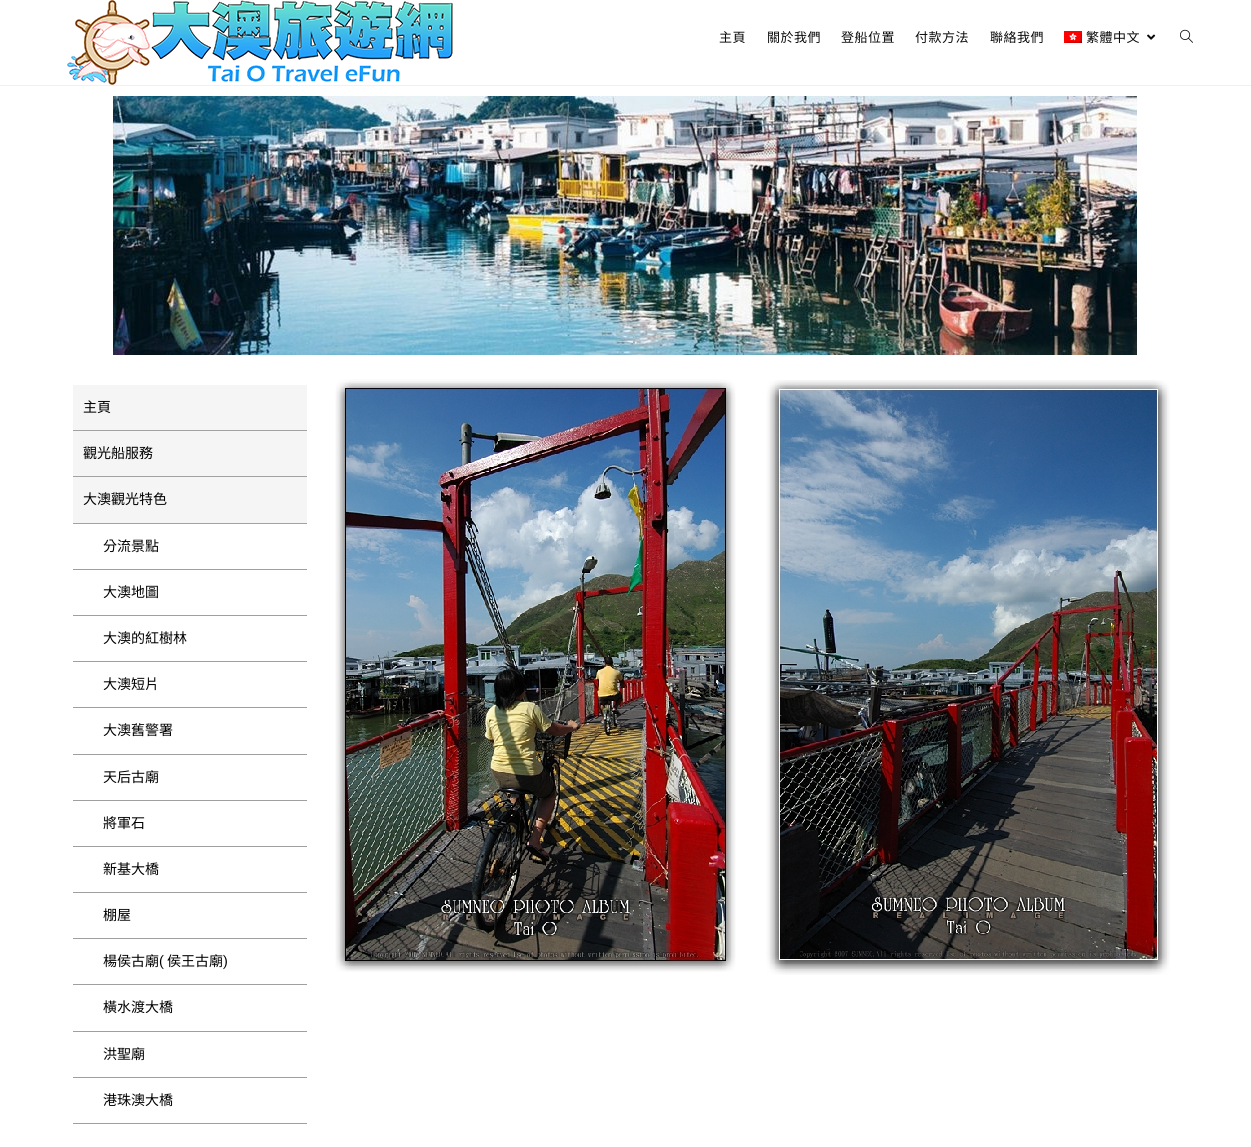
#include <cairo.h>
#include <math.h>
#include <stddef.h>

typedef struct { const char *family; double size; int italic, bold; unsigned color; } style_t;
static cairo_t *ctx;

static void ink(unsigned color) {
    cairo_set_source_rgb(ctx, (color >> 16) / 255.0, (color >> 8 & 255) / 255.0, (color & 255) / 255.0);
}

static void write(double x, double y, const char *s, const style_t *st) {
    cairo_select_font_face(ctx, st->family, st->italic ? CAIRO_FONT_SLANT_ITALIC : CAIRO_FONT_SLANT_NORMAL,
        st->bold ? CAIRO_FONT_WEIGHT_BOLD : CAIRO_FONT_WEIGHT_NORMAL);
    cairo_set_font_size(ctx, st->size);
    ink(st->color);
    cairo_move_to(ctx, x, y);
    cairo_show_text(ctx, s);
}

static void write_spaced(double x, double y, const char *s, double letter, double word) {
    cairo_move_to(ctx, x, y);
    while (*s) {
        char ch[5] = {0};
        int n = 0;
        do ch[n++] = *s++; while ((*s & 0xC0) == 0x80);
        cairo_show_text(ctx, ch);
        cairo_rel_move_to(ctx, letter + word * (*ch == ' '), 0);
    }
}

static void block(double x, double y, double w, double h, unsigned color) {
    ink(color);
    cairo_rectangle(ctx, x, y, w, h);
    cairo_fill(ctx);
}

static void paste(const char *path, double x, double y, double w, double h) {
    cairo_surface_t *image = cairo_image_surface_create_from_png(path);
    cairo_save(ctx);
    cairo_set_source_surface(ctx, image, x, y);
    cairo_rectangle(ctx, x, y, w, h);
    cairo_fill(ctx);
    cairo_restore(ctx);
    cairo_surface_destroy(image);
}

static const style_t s1 = {"Noto Sans CJK TC", 14, 0, 0, 0x000000};
static const style_t s2 = {"Roboto", 14, 0, 0, 0x000000};

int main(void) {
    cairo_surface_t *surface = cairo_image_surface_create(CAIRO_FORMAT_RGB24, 1251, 1147);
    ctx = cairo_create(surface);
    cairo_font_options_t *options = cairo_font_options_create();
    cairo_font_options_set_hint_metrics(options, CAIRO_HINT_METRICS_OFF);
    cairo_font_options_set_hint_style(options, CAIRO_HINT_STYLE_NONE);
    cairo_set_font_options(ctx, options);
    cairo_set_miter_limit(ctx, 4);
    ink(0xffffff);
    cairo_paint(ctx);
    block(0, 85, 1251, 1, 0xf1f1f1);
    paste("pic1.png", 67, 0, 386, 85);
    cairo_select_font_face(ctx, "Noto Sans CJK TC", CAIRO_FONT_SLANT_NORMAL, CAIRO_FONT_WEIGHT_NORMAL);
    cairo_set_font_size(ctx, 13);
    ink(0x0a0a0a);
    write_spaced(719, 42, "主頁", 0.5, 0);
    write_spaced(767, 42, "關於我們", 0.5, 0);
    write_spaced(841, 42, "登船位置", 0.5, 0);
    write_spaced(915, 42, "付款方法", 0.5, 0);
    write_spaced(990, 42, "聯絡我們", 0.5, 0);
    paste("pic2.png", 1064, 31, 18, 12);
    write_spaced(1086, 42, "繁體中文", 0.5, 0);
    paste("pic3.png", 1147, 34, 9, 6);
    paste("pic4.png", 1180, 29, 13, 14);
    paste("pic5.png", 113, 96, 1024, 259);
    block(73, 385, 234, 45, 0xf5f5f5);
    block(73, 430, 234, 1, 0xa2a2a2);
    write(83, 412, "主頁", &s1);
    block(73, 431, 234, 45, 0xf5f5f5);
    block(73, 476, 234, 1, 0xa2a2a2);
    write(83, 458, "觀光船服務", &s1);
    block(73, 477, 234, 46, 0xf5f5f5);
    block(73, 523, 234, 1, 0xa2a2a2);
    write(83, 504, "大澳觀光特色", &s1);
    block(73, 569, 234, 1, 0x9f9f9f);
    write(103, 551, "分流景點", &s1);
    block(73, 615, 234, 1, 0x9f9f9f);
    write(103, 597, "大澳地圖", &s1);
    block(73, 661, 234, 1, 0x9f9f9f);
    write(103, 643, "大澳的紅樹林", &s1);
    block(73, 707, 234, 1, 0x9f9f9f);
    write(103, 689, "大澳短片", &s1);
    block(73, 754, 234, 1, 0x9f9f9f);
    write(103, 735, "大澳舊警署", &s1);
    block(73, 800, 234, 1, 0x9f9f9f);
    write(103, 782, "天后古廟", &s1);
    block(73, 846, 234, 1, 0x9f9f9f);
    write(103, 828, "將軍石", &s1);
    block(73, 892, 234, 1, 0x9f9f9f);
    write(103, 874, "新基大橋", &s1);
    block(73, 938, 234, 1, 0x9f9f9f);
    write(103, 920, "棚屋", &s1);
    block(73, 984, 234, 1, 0x9f9f9f);
    write(103, 966, "楊侯古廟", &s1);
    write(159, 966, "(", &s2);
    write(167, 966, "侯王古廟", &s1);
    write(223, 966, ")", &s2);
    block(73, 1031, 234, 1, 0x9f9f9f);
    write(103, 1012, "橫水渡大橋", &s1);
    block(73, 1077, 234, 1, 0x9f9f9f);
    write(103, 1059, "洪聖廟", &s1);
    block(73, 1123, 234, 1, 0x9f9f9f);
    write(103, 1105, "港珠澳大橋", &s1);
    paste("pic6.png", 335, 379, 401, 593);
    paste("pic7.png", 766, 380, 404, 595);
    cairo_surface_write_to_png(surface, "screenshot.png");
    cairo_font_options_destroy(options);
    cairo_destroy(ctx);
    cairo_surface_destroy(surface);
    return 0;
}
